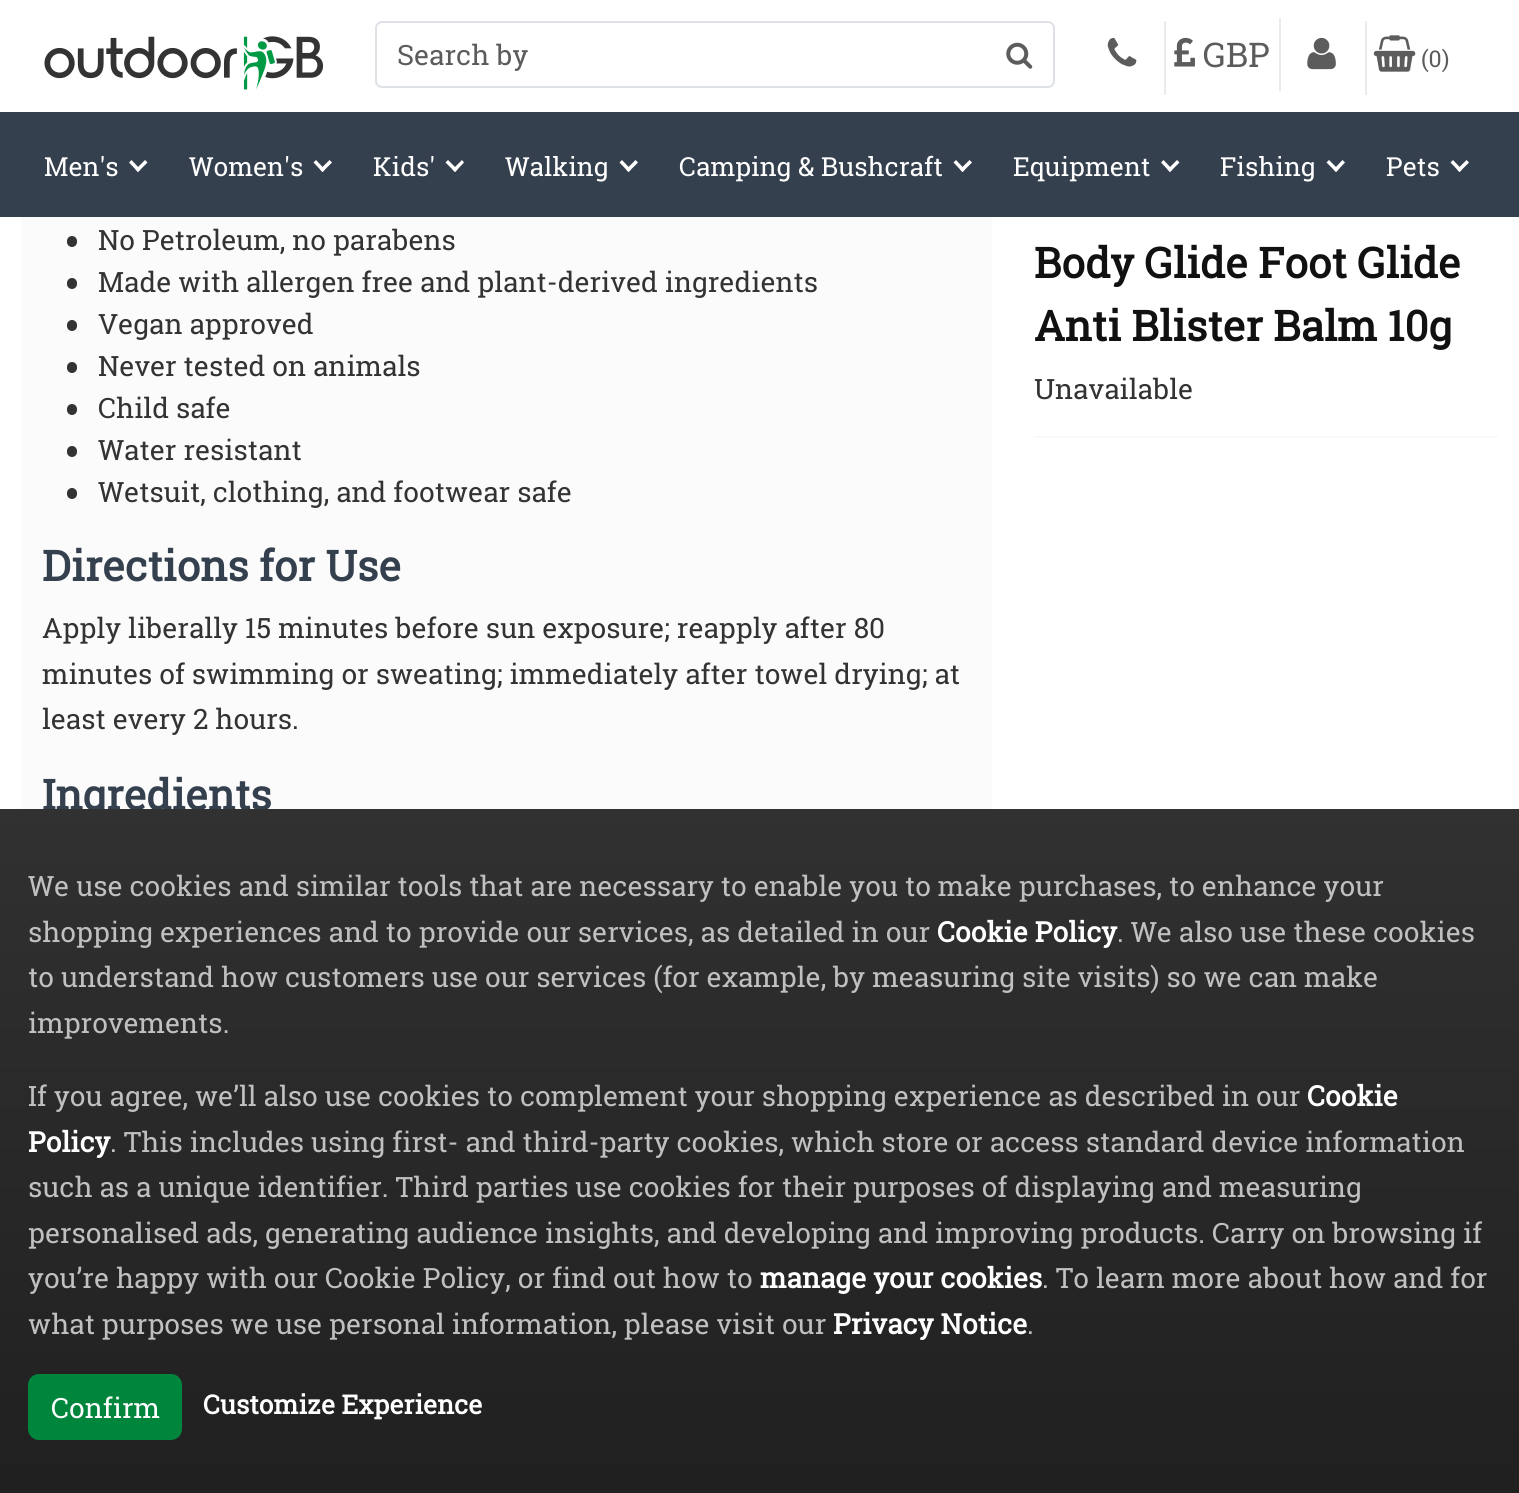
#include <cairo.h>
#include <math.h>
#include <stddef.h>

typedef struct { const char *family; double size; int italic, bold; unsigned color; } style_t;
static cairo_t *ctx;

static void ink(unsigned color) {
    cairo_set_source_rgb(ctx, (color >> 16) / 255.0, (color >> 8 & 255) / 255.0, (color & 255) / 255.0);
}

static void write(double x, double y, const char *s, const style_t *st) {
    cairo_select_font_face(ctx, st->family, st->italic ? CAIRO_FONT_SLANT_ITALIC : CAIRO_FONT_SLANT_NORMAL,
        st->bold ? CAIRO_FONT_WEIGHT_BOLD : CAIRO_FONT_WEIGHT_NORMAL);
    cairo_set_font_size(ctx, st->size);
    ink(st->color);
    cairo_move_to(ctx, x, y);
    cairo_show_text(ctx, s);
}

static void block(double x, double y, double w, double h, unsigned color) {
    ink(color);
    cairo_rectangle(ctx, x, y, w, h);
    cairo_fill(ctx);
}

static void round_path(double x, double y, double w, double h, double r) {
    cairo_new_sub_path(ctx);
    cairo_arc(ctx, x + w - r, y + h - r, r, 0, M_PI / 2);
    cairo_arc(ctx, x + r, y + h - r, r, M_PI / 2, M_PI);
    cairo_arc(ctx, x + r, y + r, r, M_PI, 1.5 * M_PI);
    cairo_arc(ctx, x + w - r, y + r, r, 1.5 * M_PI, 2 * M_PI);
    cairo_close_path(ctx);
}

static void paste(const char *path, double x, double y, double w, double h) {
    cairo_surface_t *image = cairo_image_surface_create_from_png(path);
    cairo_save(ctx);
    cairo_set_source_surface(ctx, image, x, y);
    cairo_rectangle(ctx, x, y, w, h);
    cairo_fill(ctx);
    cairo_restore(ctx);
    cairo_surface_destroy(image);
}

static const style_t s1 = {"Roboto Slab", 28, 0, 0, 0x5c5c5c};
static const style_t s2 = {"Roboto Slab", 34, 0, 0, 0x5c5c5c};
static const style_t s3 = {"Roboto Slab", 23, 0, 0, 0x5c5c5c};
static const style_t s4 = {"Roboto Slab", 26.25, 0, 0, 0xffffff};
static const style_t s5 = {"Roboto Slab", 28, 0, 0, 0x333333};
static const style_t s6 = {"Roboto Slab", 42, 0, 1, 0x35404f};
static const style_t s7 = {"Roboto Slab", 42, 0, 1, 0x111111};
static const style_t s8 = {"Roboto Slab", 28, 0, 0, 0xc0c0c0};
static const style_t s9 = {"Roboto Slab", 28, 0, 1, 0xffffff};
static const style_t s10 = {"Roboto Slab", 28, 0, 0, 0xffffff};
static const style_t s11 = {"Roboto Slab", 26.25, 0, 1, 0xffffff};

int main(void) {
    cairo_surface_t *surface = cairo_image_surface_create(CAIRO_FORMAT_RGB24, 1519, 1493);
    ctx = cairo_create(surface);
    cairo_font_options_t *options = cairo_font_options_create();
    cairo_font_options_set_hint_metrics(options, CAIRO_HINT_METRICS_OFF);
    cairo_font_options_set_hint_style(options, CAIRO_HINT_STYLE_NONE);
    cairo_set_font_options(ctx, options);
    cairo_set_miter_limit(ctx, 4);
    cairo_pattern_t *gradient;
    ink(0xffffff);
    cairo_paint(ctx);
    paste("pic1.png", 44, 36, 280, 54);
    round_path(376, 22, 678, 65, 6);
    ink(0xdee2e6);
    cairo_stroke(ctx);
    write(397, 65, "Search by", &s1);
    paste("pic2.png", 1006, 42, 27, 27);
    block(1164, 21, 2, 74, 0xebebeb);
    paste("pic3.png", 1107, 37, 30, 30);
    block(1279, 18, 2, 73, 0xebebeb);
    paste("pic4.png", 1174, 37, 21, 30);
    write(1203, 67, "GBP", &s2);
    block(1365, 21, 2, 74, 0xebebeb);
    paste("pic5.png", 1307, 37, 29, 33);
    paste("pic6.png", 1373, 35, 43, 37);
    write(1421, 67, "(0", &s3);
    write(1442, 67, ")", &s3);
    block(0, 112, 1519, 105, 0x35404f);
    write(44, 176, "Men's", &s4);
    cairo_new_path(ctx);
    cairo_move_to(ctx, 147.5, 162.5);
    cairo_line_to(ctx, 138, 172);
    cairo_line_to(ctx, 135.5, 169.5);
    cairo_line_to(ctx, 145, 160);
    cairo_close_path(ctx);
    cairo_fill(ctx);
    cairo_new_path(ctx);
    cairo_move_to(ctx, 140.5, 169.5);
    cairo_line_to(ctx, 138, 172);
    cairo_line_to(ctx, 129, 162.5);
    cairo_line_to(ctx, 131.5, 160);
    cairo_close_path(ctx);
    cairo_fill(ctx);
    write(189, 176, "Women's", &s4);
    cairo_new_path(ctx);
    cairo_move_to(ctx, 332, 162.5);
    cairo_line_to(ctx, 322.5, 172);
    cairo_line_to(ctx, 320, 169.5);
    cairo_line_to(ctx, 329.5, 160);
    cairo_close_path(ctx);
    cairo_fill(ctx);
    cairo_new_path(ctx);
    cairo_move_to(ctx, 325, 169.5);
    cairo_line_to(ctx, 322.5, 172);
    cairo_line_to(ctx, 313.5, 162.5);
    cairo_line_to(ctx, 316, 160);
    cairo_close_path(ctx);
    cairo_fill(ctx);
    write(373, 176, "Kids'", &s4);
    cairo_new_path(ctx);
    cairo_move_to(ctx, 464, 162.5);
    cairo_line_to(ctx, 455, 172);
    cairo_line_to(ctx, 452.5, 169.5);
    cairo_line_to(ctx, 462, 160);
    cairo_close_path(ctx);
    cairo_fill(ctx);
    cairo_new_path(ctx);
    cairo_move_to(ctx, 457.5, 169.5);
    cairo_line_to(ctx, 455, 172);
    cairo_line_to(ctx, 445.5, 162.5);
    cairo_line_to(ctx, 448, 160);
    cairo_close_path(ctx);
    cairo_fill(ctx);
    write(505, 176, "Walking", &s4);
    cairo_new_path(ctx);
    cairo_move_to(ctx, 638, 162.5);
    cairo_line_to(ctx, 628.5, 172);
    cairo_line_to(ctx, 626, 169.5);
    cairo_line_to(ctx, 635.5, 160);
    cairo_close_path(ctx);
    cairo_fill(ctx);
    cairo_new_path(ctx);
    cairo_move_to(ctx, 631, 169.5);
    cairo_line_to(ctx, 628.5, 172);
    cairo_line_to(ctx, 619.5, 162.5);
    cairo_line_to(ctx, 622, 160);
    cairo_close_path(ctx);
    cairo_fill(ctx);
    write(679, 176, "Camping & Bushcraft", &s4);
    cairo_new_path(ctx);
    cairo_move_to(ctx, 972, 162.5);
    cairo_line_to(ctx, 962.5, 172);
    cairo_line_to(ctx, 960, 169.5);
    cairo_line_to(ctx, 969.5, 160);
    cairo_close_path(ctx);
    cairo_fill(ctx);
    cairo_new_path(ctx);
    cairo_move_to(ctx, 965, 169.5);
    cairo_line_to(ctx, 962.5, 172);
    cairo_line_to(ctx, 953.5, 162.5);
    cairo_line_to(ctx, 956, 160);
    cairo_close_path(ctx);
    cairo_fill(ctx);
    write(1013, 176, "Equipment", &s4);
    cairo_new_path(ctx);
    cairo_move_to(ctx, 1179.5, 162.5);
    cairo_line_to(ctx, 1170, 172);
    cairo_line_to(ctx, 1167.5, 169.5);
    cairo_line_to(ctx, 1177, 160);
    cairo_close_path(ctx);
    cairo_fill(ctx);
    cairo_new_path(ctx);
    cairo_move_to(ctx, 1172.5, 169.5);
    cairo_line_to(ctx, 1170, 172);
    cairo_line_to(ctx, 1161, 162.5);
    cairo_line_to(ctx, 1163.5, 160);
    cairo_close_path(ctx);
    cairo_fill(ctx);
    write(1220, 176, "Fishing", &s4);
    cairo_new_path(ctx);
    cairo_move_to(ctx, 1345, 162.5);
    cairo_line_to(ctx, 1336, 172);
    cairo_line_to(ctx, 1333.5, 169.5);
    cairo_line_to(ctx, 1342.5, 160);
    cairo_close_path(ctx);
    cairo_fill(ctx);
    cairo_new_path(ctx);
    cairo_move_to(ctx, 1338.5, 169.5);
    cairo_line_to(ctx, 1336, 172);
    cairo_line_to(ctx, 1326.5, 162.5);
    cairo_line_to(ctx, 1329, 160);
    cairo_close_path(ctx);
    cairo_fill(ctx);
    write(1386, 176, "Pets", &s4);
    cairo_new_path(ctx);
    cairo_move_to(ctx, 1469, 162.5);
    cairo_line_to(ctx, 1459.5, 172);
    cairo_line_to(ctx, 1457, 169.5);
    cairo_line_to(ctx, 1466.5, 160);
    cairo_close_path(ctx);
    cairo_fill(ctx);
    cairo_new_path(ctx);
    cairo_move_to(ctx, 1462, 169.5);
    cairo_line_to(ctx, 1459.5, 172);
    cairo_line_to(ctx, 1450.5, 162.5);
    cairo_line_to(ctx, 1453, 160);
    cairo_close_path(ctx);
    cairo_fill(ctx);
    block(21, 217, 971, 592, 0xfbfbfb);
    ink(0x333333);
    round_path(67, 236, 10, 11, 5);
    cairo_fill(ctx);
    write(98, 250, "No Petroleum, no parabens", &s5);
    round_path(67, 278, 10, 11, 5);
    cairo_fill(ctx);
    write(98, 292, "Made with allergen free and plant-derived ingredients", &s5);
    round_path(67, 320, 10, 11, 5);
    cairo_fill(ctx);
    write(98, 334, "Vegan approved", &s5);
    round_path(67, 362, 10, 11, 5);
    cairo_fill(ctx);
    write(98, 376, "Never tested on animals", &s5);
    round_path(67, 404, 10, 11, 5);
    cairo_fill(ctx);
    write(98, 418, "Child safe", &s5);
    round_path(67, 446, 10, 11, 5);
    cairo_fill(ctx);
    write(98, 460, "Water resistant", &s5);
    round_path(67, 488, 10, 11, 5);
    cairo_fill(ctx);
    write(98, 502, "Wetsuit, clothing, and footwear safe", &s5);
    write(42, 581, "Directions for Use", &s6);
    write(42, 638, "Apply liberally 15 minutes before sun exposure; reapply after 80", &s5);
    write(42, 684, "minutes of swimming or sweating; immediately after towel drying; at", &s5);
    write(42, 729, "least every 2 hours.", &s5);
    write(42, 810, "Ingredients", &s6);
    write(1034, 278, "Body Glide Foot Glide", &s7);
    write(1034, 341, "Anti Blister Balm 10g", &s7);
    write(1034, 399, "Unavailable", &s5);
    block(1034, 436, 464, 2, 0xf9f9f9);
    gradient = cairo_pattern_create_linear(760, 808, 760, 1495);
    cairo_pattern_add_color_stop_rgba(gradient, 0, 0.192, 0.192, 0.192, 1);
    cairo_pattern_add_color_stop_rgba(gradient, 1, 0.125, 0.125, 0.125, 1);
    cairo_set_source(ctx, gradient);
    cairo_pattern_destroy(gradient);
    cairo_rectangle(ctx, 0, 809, 1519, 684);
    cairo_fill(ctx);
    write(28, 896, "We use cookies and similar tools that are necessary to enable you to make purchases, to enhance your", &s8);
    write(28, 942, "shopping experiences and to provide our services, as detailed in our", &s8);
    write(937, 942, "Cookie Policy", &s9);
    write(1117, 942, ". We also use these cookies", &s8);
    write(28, 987, "to understand how customers use our services (for example, by measuring site visits) so we can make", &s8);
    write(28, 1033, "improvements.", &s8);
    write(28, 1106, "If you agree, we’ll also use cookies to complement your shopping experience as described in our", &s8);
    write(1307, 1106, "Cookie", &s9);
    write(28, 1152, "Policy", &s9);
    write(110, 1152, ". This includes using first- and third-party cookies, which store or access standard device information", &s8);
    write(28, 1197, "such as a unique identifier. Third parties use cookies for their purposes of displaying and measuring", &s8);
    write(28, 1243, "personalised ads, generating audience insights, and developing and improving products. Carry on browsing if", &s8);
    write(28, 1288, "you’re happy with our Cookie Policy, or find out how to", &s8);
    write(760, 1288, "manage your cookies", &s9);
    write(1042, 1288, ". To learn more about how and for", &s8);
    write(28, 1334, "what purposes we use personal information, please visit our", &s8);
    write(833, 1334, "Privacy Notice", &s9);
    write(1027, 1334, ".", &s8);
    ink(0x00853c);
    round_path(29, 1375, 152, 64, 10);
    cairo_fill_preserve(ctx);
    cairo_stroke(ctx);
    write(51, 1418, "Confirm", &s10);
    write(203, 1414, "Customize Experience", &s11);
    cairo_surface_write_to_png(surface, "screenshot.png");
    cairo_font_options_destroy(options);
    cairo_destroy(ctx);
    cairo_surface_destroy(surface);
    return 0;
}
